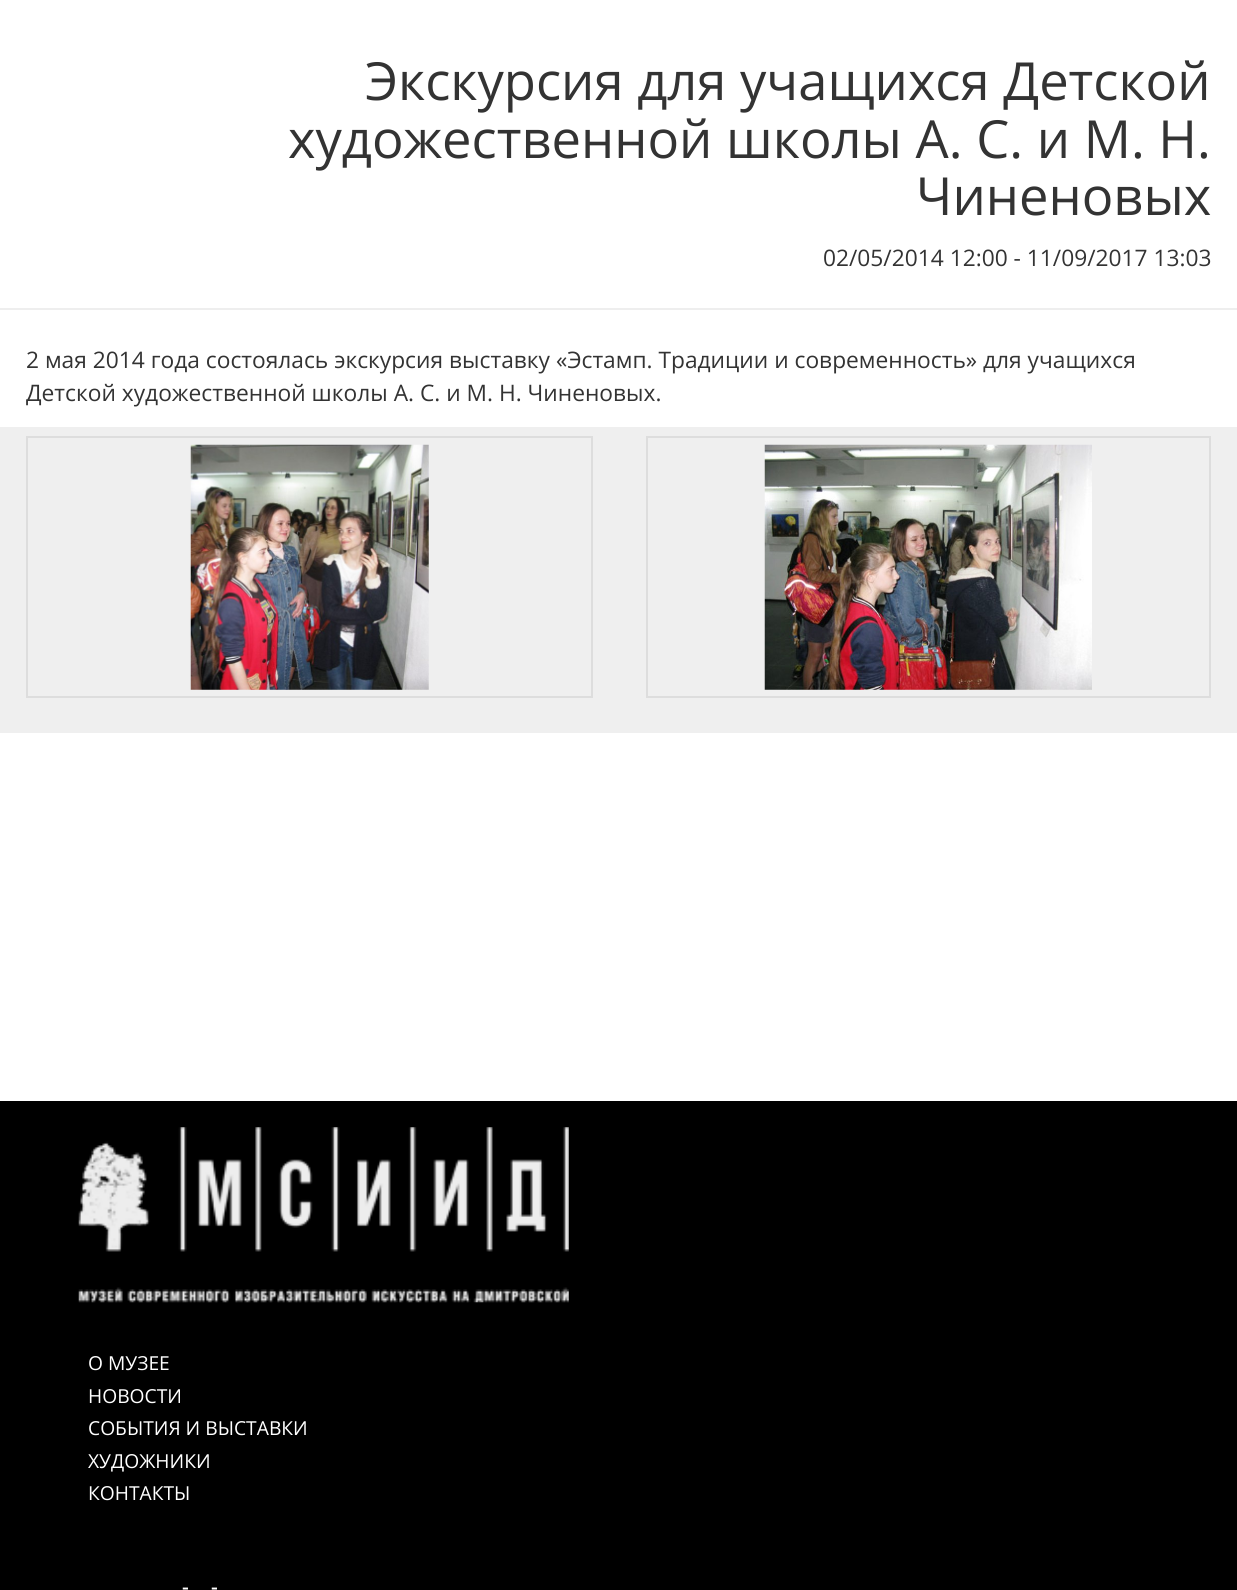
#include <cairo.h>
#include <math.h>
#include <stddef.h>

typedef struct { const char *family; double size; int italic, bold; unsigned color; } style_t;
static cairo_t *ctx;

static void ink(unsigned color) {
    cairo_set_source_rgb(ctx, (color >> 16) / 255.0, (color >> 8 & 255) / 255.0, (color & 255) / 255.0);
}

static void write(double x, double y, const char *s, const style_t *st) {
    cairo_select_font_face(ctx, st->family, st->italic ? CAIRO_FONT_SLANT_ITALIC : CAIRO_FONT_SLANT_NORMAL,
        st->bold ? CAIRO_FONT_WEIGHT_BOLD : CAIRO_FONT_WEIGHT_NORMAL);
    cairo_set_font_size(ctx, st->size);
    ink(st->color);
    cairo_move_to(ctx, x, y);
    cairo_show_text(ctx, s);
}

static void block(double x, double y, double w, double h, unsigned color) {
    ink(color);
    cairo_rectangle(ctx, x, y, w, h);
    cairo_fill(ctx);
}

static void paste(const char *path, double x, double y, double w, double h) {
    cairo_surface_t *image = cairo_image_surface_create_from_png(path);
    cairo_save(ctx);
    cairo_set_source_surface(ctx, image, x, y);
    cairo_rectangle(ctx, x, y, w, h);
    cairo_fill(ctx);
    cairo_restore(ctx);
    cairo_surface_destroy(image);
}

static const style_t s1 = {"Open Sans", 52.5, 0, 0, 0x333333};
static const style_t s2 = {"Open Sans", 22.75, 0, 0, 0x333333};
static const style_t s3 = {"Open Sans", 19.25, 0, 0, 0xffffff};
static const style_t s4 = {"Open Sans", 19.25, 0, 1, 0xffffff};

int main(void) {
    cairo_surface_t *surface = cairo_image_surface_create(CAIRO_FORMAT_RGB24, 1237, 1590);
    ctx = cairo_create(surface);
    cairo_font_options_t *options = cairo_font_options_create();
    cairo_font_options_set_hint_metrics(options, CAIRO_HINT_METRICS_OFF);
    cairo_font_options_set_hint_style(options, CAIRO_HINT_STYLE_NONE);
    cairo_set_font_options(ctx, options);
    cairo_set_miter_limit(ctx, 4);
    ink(0xffffff);
    cairo_paint(ctx);
    block(0, 308, 1237, 2, 0xeeeeee);
    write(365, 100, "Экскурсия для учащихся Детской", &s1);
    write(288, 158, "художественной школы А. С. и М. Н.", &s1);
    write(916, 215, "Чиненовых", &s1);
    write(823, 266, "02/05/2014 12:00 - 11/09/2017 13:03", &s2);
    write(26, 368, "2 мая 2014 года состоялась экскурсия выставку «Эстамп. Традиции и современность» для учащихся", &s2);
    write(26, 401, "Детской художественной школы А. С. и М. Н. Чиненовых.", &s2);
    block(0, 427, 1237, 306, 0xefefef);
    cairo_rectangle(ctx, 27, 437, 565, 260);
    ink(0xdddddd);
    cairo_stroke(ctx);
    paste("pic1.png", 190, 444, 239, 246);
    cairo_rectangle(ctx, 647, 437, 563, 260);
    cairo_stroke(ctx);
    paste("pic2.png", 764, 444, 328, 246);
    block(0, 1101, 1237, 489, 0x000000);
    paste("pic3.png", 78, 1127, 491, 176);
    write(88, 1370, "О МУЗЕЕ", &s3);
    write(88, 1403, "НОВОСТИ", &s3);
    write(88, 1435, "СОБЫТИЯ И ВЫСТАВКИ", &s3);
    write(88, 1468, "ХУДОЖНИКИ", &s3);
    write(88, 1500, "КОНТАКТЫ", &s3);
    write(182, 1594, "-", &s4);
    write(211, 1594, "-", &s4);
    cairo_surface_write_to_png(surface, "screenshot.png");
    cairo_font_options_destroy(options);
    cairo_destroy(ctx);
    cairo_surface_destroy(surface);
    return 0;
}
